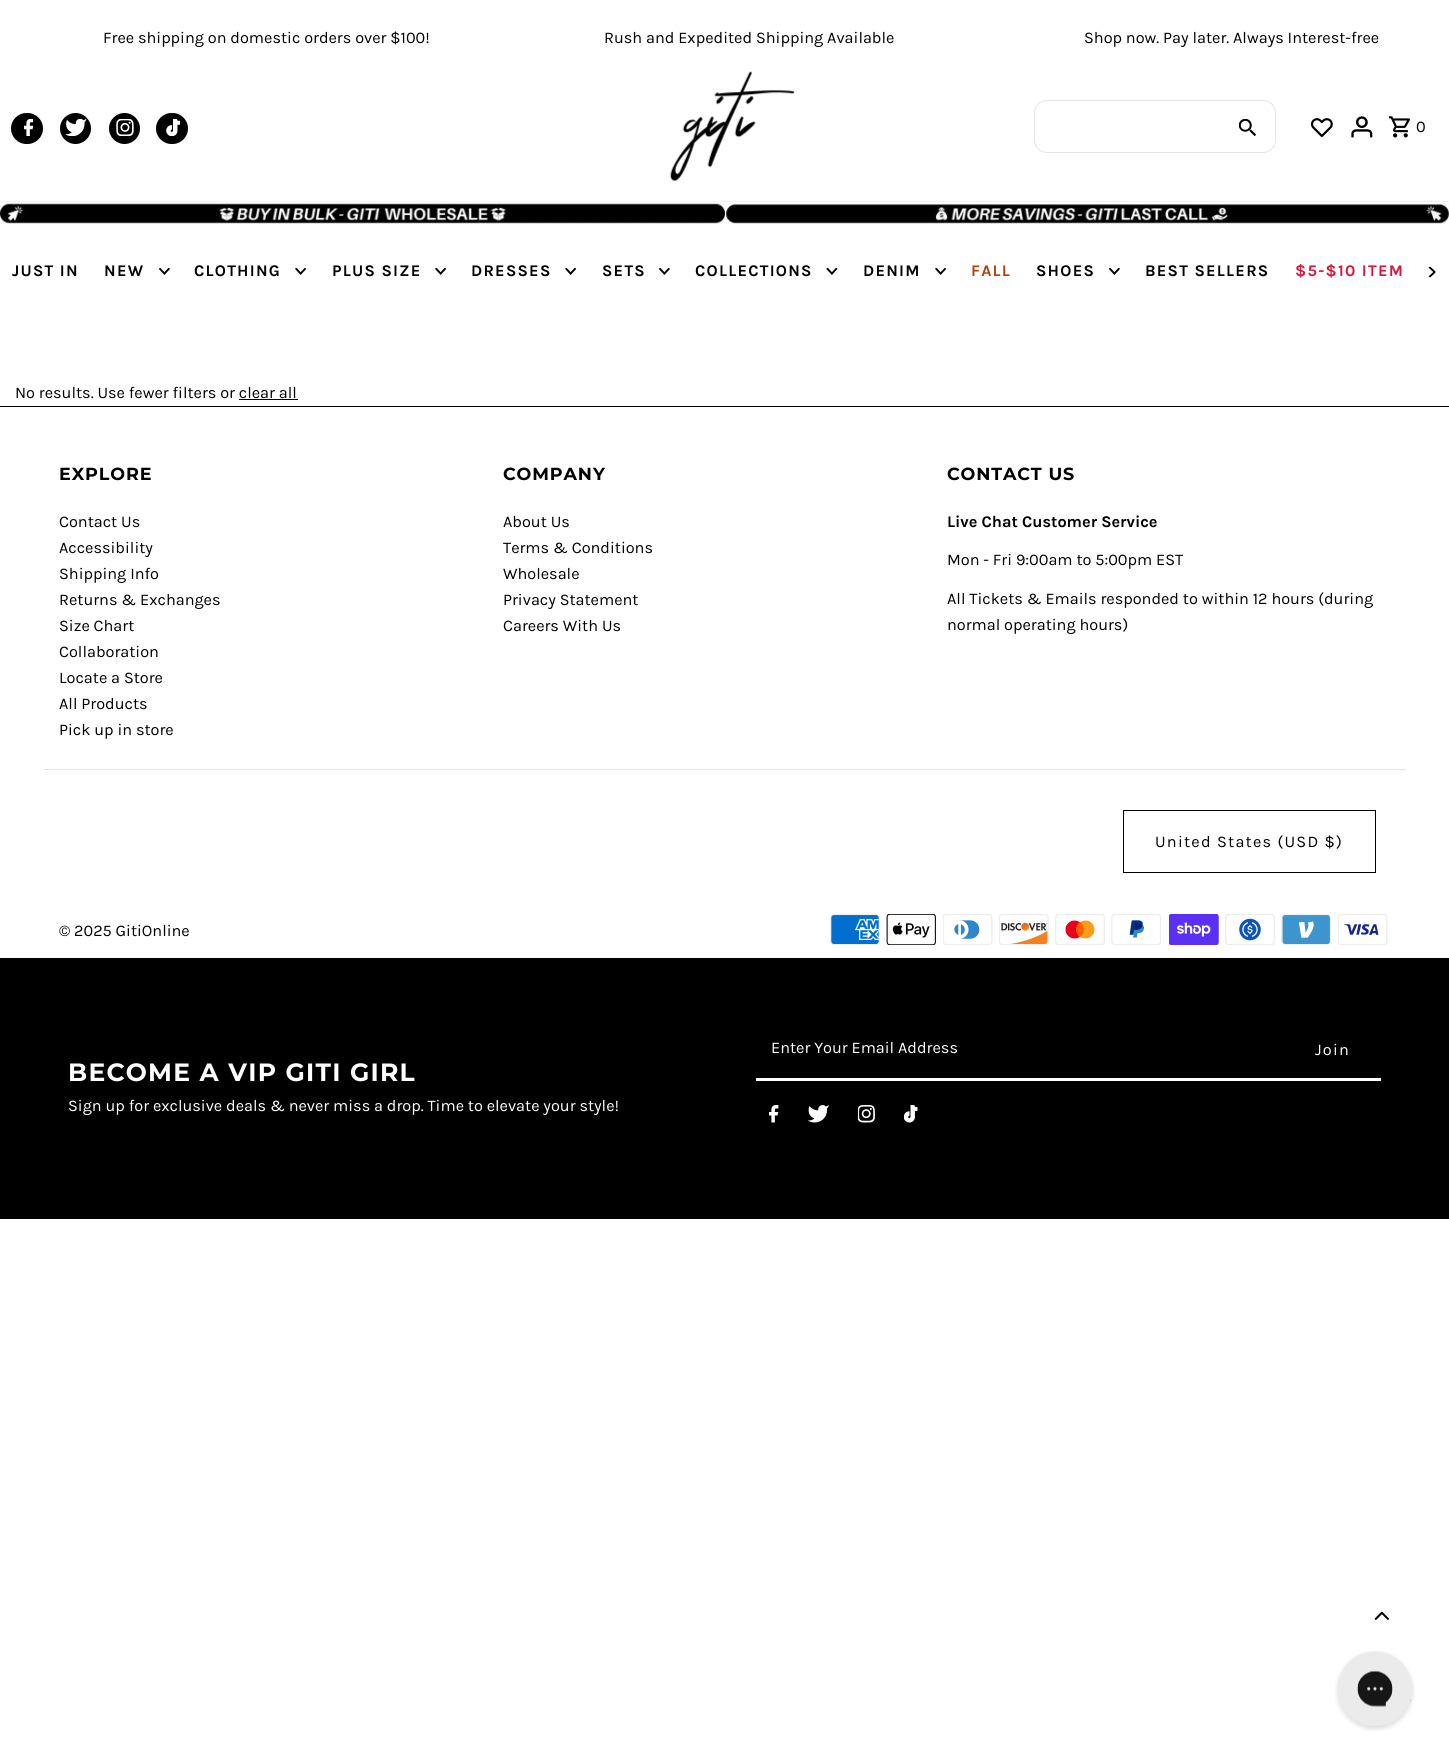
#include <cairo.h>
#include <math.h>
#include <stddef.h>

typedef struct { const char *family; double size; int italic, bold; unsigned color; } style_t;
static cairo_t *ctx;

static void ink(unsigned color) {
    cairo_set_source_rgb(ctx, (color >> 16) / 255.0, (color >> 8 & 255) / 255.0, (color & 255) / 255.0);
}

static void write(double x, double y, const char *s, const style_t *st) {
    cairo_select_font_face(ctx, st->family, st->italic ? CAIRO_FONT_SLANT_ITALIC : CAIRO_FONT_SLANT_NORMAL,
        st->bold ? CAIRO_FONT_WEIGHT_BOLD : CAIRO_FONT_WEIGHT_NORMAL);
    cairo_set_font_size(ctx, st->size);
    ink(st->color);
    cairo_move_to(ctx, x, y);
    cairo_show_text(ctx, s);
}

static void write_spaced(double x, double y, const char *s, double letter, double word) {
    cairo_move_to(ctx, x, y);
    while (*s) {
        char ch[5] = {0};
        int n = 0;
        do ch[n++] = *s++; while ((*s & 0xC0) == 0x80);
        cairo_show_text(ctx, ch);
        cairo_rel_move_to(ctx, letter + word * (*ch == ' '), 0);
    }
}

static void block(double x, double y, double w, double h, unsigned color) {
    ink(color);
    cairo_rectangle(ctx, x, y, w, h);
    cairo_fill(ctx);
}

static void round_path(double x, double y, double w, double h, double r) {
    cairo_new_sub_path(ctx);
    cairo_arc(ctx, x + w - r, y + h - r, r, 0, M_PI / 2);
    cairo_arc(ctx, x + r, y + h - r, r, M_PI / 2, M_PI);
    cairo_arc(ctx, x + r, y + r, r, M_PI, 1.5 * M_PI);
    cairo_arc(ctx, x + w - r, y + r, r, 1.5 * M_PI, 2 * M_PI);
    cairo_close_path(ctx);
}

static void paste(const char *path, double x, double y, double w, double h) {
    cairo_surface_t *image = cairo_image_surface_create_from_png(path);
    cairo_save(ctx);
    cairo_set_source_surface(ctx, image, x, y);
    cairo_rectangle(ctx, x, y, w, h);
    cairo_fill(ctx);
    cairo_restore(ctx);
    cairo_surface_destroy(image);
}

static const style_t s1 = {"Karla", 16.25, 0, 0, 0x000000};
static const style_t s2 = {"Karla", 16.25, 0, 1, 0x000000};
static const style_t s3 = {"Karla", 16.25, 0, 0, 0xffffff};

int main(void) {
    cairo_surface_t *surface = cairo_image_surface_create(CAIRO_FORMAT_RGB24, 1449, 1759);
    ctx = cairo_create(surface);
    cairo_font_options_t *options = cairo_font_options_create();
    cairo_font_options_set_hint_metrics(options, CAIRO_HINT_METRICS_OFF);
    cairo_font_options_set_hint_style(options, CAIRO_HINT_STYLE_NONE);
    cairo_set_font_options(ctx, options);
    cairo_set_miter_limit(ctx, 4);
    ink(0xffffff);
    cairo_paint(ctx);
    write(103, 43, "Free shipping on domestic orders over $100!", &s1);
    write(604, 43, "Rush and Expedited Shipping Available", &s1);
    write(1084, 43, "Shop now. Pay later. Always Interest-free", &s1);
    block(0, 201, 1449, 1, 0xf2f2f2);
    ink(0x000000);
    round_path(11, 113, 32, 31, 15.5);
    cairo_fill(ctx);
    paste("pic1.png", 24, 119, 9, 17);
    cairo_arc(ctx, 75.5, 128.5, 15.5, 0, 2 * M_PI);
    cairo_fill(ctx);
    paste("pic2.png", 65, 119, 22, 17);
    cairo_arc(ctx, 124.5, 128.5, 15.5, 0, 2 * M_PI);
    cairo_fill(ctx);
    paste("pic3.png", 116, 119, 18, 17);
    round_path(156, 113, 32, 31, 15.5);
    cairo_fill(ctx);
    paste("pic4.png", 166, 119, 14, 17);
    paste("pic5.png", 670, 71, 125, 111);
    round_path(1034.5, 100.5, 241, 52, 12.5);
    ink(0xe5e5e5);
    cairo_set_line_width(ctx, 1);
    cairo_stroke(ctx);
    paste("pic6.png", 1239, 119, 17, 17);
    paste("pic7.png", 1310, 118, 23, 20);
    paste("pic8.png", 1351, 116, 22, 22);
    paste("pic9.png", 1389, 116, 21, 22);
    ink(0x000000);
    write_spaced(1416, 132, "0", 1.25, 0);
    paste("pic10.png", 0, 203, 725, 21);
    paste("pic11.png", 726, 203, 723, 21);
    cairo_select_font_face(ctx, "Karla", CAIRO_FONT_SLANT_NORMAL, CAIRO_FONT_WEIGHT_BOLD);
    write_spaced(12, 276, "JUST IN", 1.25, 0);
    write_spaced(104, 276, "NEW", 1.25, 0);
    paste("pic12.png", 159, 268, 11, 7);
    write_spaced(194, 276, "CLOTHING", 1.25, 0);
    paste("pic13.png", 295, 268, 11, 7);
    write_spaced(332, 276, "PLUS SIZE", 1.25, 0);
    paste("pic13.png", 435, 268, 11, 7);
    write_spaced(471, 276, "DRESSES", 1.25, 0);
    paste("pic13.png", 565, 268, 11, 7);
    write_spaced(602, 276, "SETS", 1.25, 0);
    paste("pic12.png", 659, 268, 11, 7);
    write_spaced(695, 276, "COLLECTIONS", 1.25, 0);
    paste("pic14.png", 826, 268, 12, 7);
    write_spaced(863, 276, "DENIM", 1.25, 0);
    paste("pic13.png", 935, 268, 11, 7);
    ink(0xb7410e);
    write_spaced(971, 276, "FALL", 1.25, 0);
    ink(0x000000);
    write_spaced(1036, 276, "SHOES", 1.25, 0);
    paste("pic12.png", 1109, 268, 11, 7);
    write_spaced(1145, 276, "BEST SELLERS", 1.25, 0);
    ink(0xdc143c);
    write_spaced(1295, 276, "$5-$10 ITEM", 1.25, 0);
    paste("pic15.png", 1428, 266, 8, 12);
    write(15, 398, "No results. Use fewer filters or clear all", &s1);
    block(239, 399, 59, 1, 0x000000);
    block(0, 406, 1449, 1, 0x000000);
    cairo_select_font_face(ctx, "Montserrat", CAIRO_FONT_SLANT_NORMAL, CAIRO_FONT_WEIGHT_BOLD);
    cairo_set_font_size(ctx, 17.5);
    write_spaced(59, 480, "EXPLORE", 0.9, 0);
    write(59, 527, "Contact Us", &s1);
    write(59, 553, "Accessibility", &s1);
    write(59, 579, "Shipping Info", &s1);
    write(59, 605, "Returns & Exchanges", &s1);
    write(59, 631, "Size Chart", &s1);
    write(59, 657, "Collaboration", &s1);
    write(59, 683, "Locate a Store", &s1);
    write(59, 709, "All Products", &s1);
    write(59, 735, "Pick up in store", &s1);
    cairo_select_font_face(ctx, "Montserrat", CAIRO_FONT_SLANT_NORMAL, CAIRO_FONT_WEIGHT_BOLD);
    cairo_set_font_size(ctx, 17.5);
    write_spaced(503, 480, "COMPANY", 0.9, 0);
    write(503, 527, "About Us", &s1);
    write(503, 553, "Terms & Conditions", &s1);
    write(503, 579, "Wholesale", &s1);
    write(503, 605, "Privacy Statement", &s1);
    write(503, 631, "Careers With Us", &s1);
    cairo_select_font_face(ctx, "Montserrat", CAIRO_FONT_SLANT_NORMAL, CAIRO_FONT_WEIGHT_BOLD);
    cairo_set_font_size(ctx, 17.5);
    write_spaced(947, 480, "CONTACT US", 0.9, 0);
    write(947, 527, "Live Chat Customer Service", &s2);
    write(947, 565, "Mon - Fri 9:00am to 5:00pm EST", &s1);
    write(947, 604, "All Tickets & Emails responded to within 12 hours (during", &s1);
    write(947, 630, "normal operating hours)", &s1);
    block(44, 769, 1362, 1, 0xe5e5e5);
    cairo_rectangle(ctx, 1123.5, 810.5, 252, 62);
    ink(0x000000);
    cairo_stroke(ctx);
    write_spaced(1155, 847, "United States (USD $)", 1.25, 0);
    paste("pic16.png", 830, 914, 50, 31);
    paste("pic17.png", 886, 914, 50, 31);
    paste("pic18.png", 943, 914, 50, 31);
    paste("pic19.png", 999, 914, 50, 31);
    paste("pic20.png", 1055, 914, 50, 31);
    paste("pic21.png", 1111, 914, 50, 31);
    paste("pic22.png", 1169, 914, 50, 31);
    paste("pic23.png", 1225, 914, 50, 31);
    paste("pic24.png", 1281, 914, 50, 31);
    paste("pic25.png", 1338, 914, 50, 31);
    write(59, 936, "© 2025 GitiOnline", &s1);
    block(0, 958, 1449, 261, 0x000000);
    block(756, 1078, 625, 3, 0xffffff);
    write(771, 1053, "Enter Your Email Address", &s3);
    write_spaced(1315, 1055, "Join", 1.25, 0);
    paste("pic26.png", 769, 1105, 10, 18);
    paste("pic27.png", 808, 1105, 21, 18);
    paste("pic28.png", 858, 1105, 17, 18);
    paste("pic29.png", 904, 1105, 14, 18);
    cairo_select_font_face(ctx, "Montserrat", CAIRO_FONT_SLANT_NORMAL, CAIRO_FONT_WEIGHT_BOLD);
    cairo_set_font_size(ctx, 25);
    write_spaced(68, 1081, "BECOME A VIP GITI GIRL", 1.25, 0);
    write(68, 1111, "Sign up for exclusive deals & never miss a drop. Time to elevate your style!", &s3);
    ink(0x999999);
    cairo_new_path(ctx);
    cairo_move_to(ctx, 1396.5, 1686.5);
    cairo_line_to(ctx, 1382.5, 1700.5);
    cairo_line_to(ctx, 1386, 1703.5);
    cairo_line_to(ctx, 1396.5, 1693);
    cairo_line_to(ctx, 1407.5, 1703.5);
    cairo_line_to(ctx, 1411, 1700.5);
    cairo_close_path(ctx);
    cairo_fill(ctx);
    paste("pic30.png", 1374, 1611, 15, 9);
    paste("pic31.png", 1335, 1651, 80, 80);
    cairo_surface_write_to_png(surface, "screenshot.png");
    cairo_font_options_destroy(options);
    cairo_destroy(ctx);
    cairo_surface_destroy(surface);
    return 0;
}
